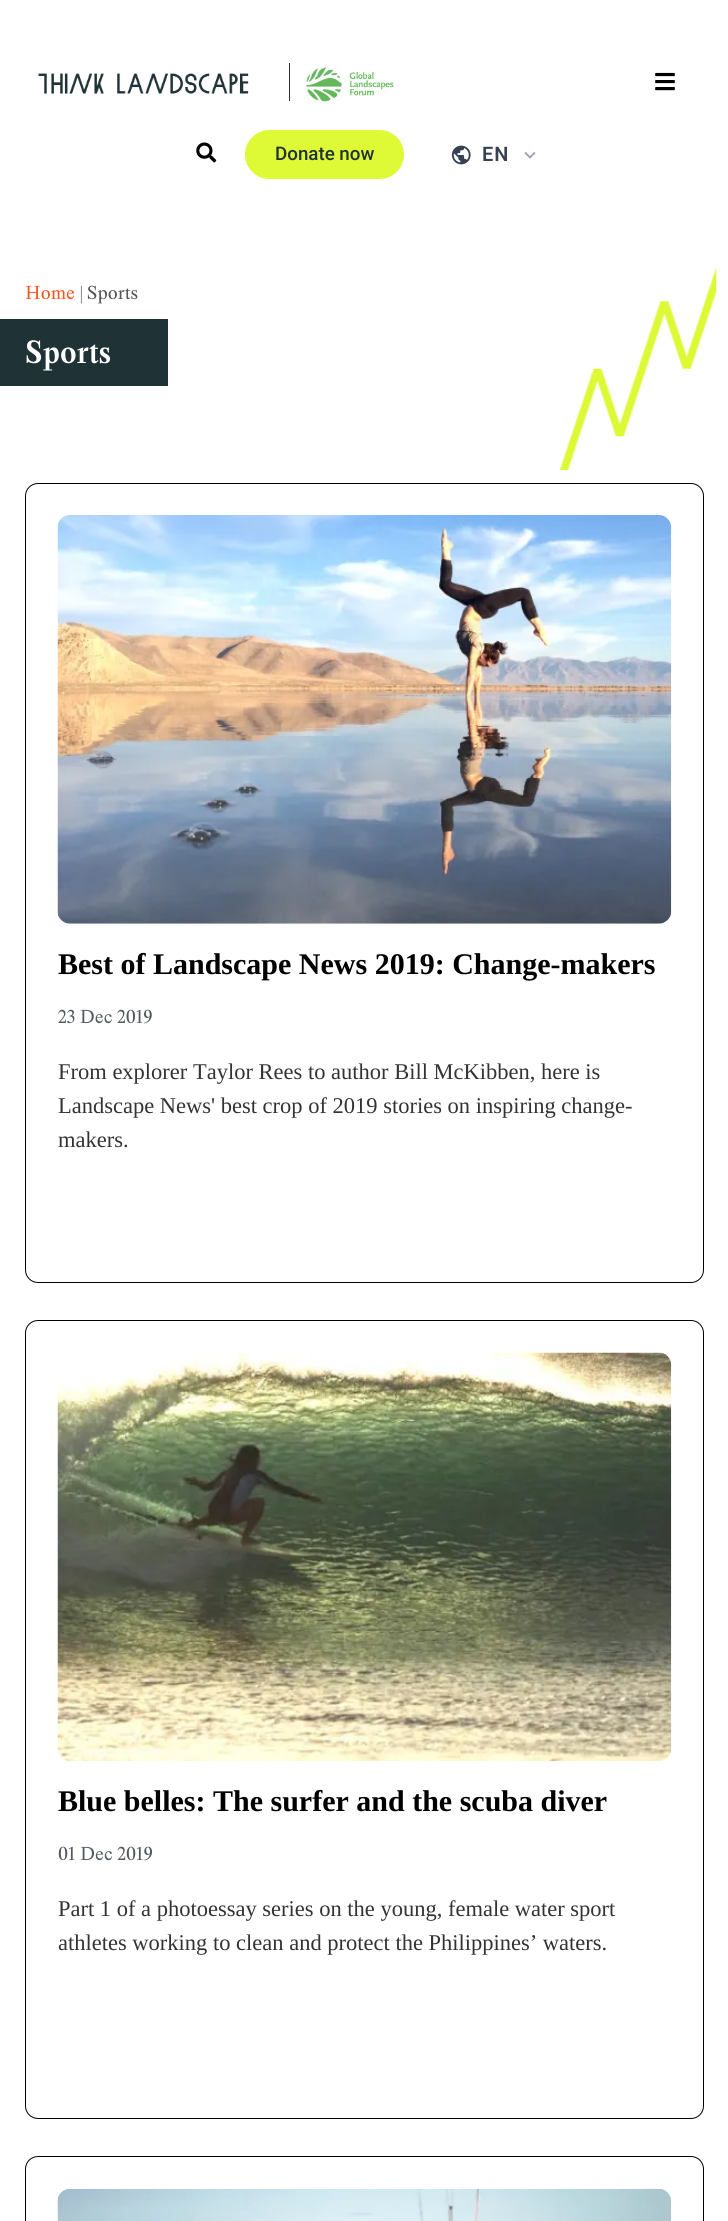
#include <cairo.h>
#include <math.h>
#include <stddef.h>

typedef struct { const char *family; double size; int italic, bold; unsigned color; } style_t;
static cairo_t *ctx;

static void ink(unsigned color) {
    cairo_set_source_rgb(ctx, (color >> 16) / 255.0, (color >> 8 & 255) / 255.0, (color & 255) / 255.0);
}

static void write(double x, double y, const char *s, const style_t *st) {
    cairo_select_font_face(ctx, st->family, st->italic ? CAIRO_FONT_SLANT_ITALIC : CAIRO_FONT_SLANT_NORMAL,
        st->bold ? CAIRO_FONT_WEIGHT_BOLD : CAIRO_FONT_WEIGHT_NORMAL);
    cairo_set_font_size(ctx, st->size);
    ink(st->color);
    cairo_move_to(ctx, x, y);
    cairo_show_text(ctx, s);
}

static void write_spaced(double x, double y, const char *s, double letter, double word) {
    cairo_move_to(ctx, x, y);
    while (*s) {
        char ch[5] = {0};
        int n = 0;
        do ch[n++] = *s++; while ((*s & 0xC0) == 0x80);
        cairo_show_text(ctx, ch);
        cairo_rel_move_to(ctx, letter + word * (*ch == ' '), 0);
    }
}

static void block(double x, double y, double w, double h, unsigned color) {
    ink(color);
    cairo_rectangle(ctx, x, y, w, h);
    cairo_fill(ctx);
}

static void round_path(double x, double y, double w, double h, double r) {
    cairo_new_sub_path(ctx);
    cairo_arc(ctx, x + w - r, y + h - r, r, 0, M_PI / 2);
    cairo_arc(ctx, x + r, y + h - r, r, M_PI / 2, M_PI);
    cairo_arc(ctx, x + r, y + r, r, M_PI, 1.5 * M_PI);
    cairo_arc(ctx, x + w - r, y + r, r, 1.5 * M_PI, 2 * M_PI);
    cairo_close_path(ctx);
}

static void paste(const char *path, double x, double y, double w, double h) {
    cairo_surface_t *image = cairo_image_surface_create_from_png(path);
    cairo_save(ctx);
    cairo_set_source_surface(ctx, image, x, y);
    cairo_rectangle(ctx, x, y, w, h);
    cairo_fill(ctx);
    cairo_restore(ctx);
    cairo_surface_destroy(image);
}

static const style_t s1 = {"Roboto Medium", 18.75, 0, 0, 0x1f3236};
static const style_t s2 = {"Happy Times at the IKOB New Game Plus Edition", 17.5, 0, 0, 0xfb5320};
static const style_t s3 = {"Happy Times at the IKOB New Game Plus Edition", 17.5, 0, 0, 0x555555};
static const style_t s4 = {"Happy Times at the IKOB New Game Plus Edition", 30, 0, 1, 0xffffff};
static const style_t s5 = {"Liberation Serif", 30, 0, 1, 0x000000};
static const style_t s6 = {"Happy Times at the IKOB New Game Plus Edition", 17.5, 0, 0, 0x54595f};
static const style_t s7 = {"Liberation Serif", 22.5, 0, 0, 0x333333};

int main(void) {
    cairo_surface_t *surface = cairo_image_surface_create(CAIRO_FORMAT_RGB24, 728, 2221);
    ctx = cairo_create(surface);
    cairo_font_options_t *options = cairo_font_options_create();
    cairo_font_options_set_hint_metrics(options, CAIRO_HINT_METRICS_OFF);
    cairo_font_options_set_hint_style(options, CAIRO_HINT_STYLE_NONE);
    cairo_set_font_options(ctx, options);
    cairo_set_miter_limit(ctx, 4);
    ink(0xffffff);
    cairo_paint(ctx);
    paste("pic1.png", 38, 73, 211, 21);
    block(289, 63, 1, 38, 0x333333);
    paste("pic2.png", 306, 67, 88, 35);
    paste("pic3.png", 655, 72, 20, 19);
    paste("pic4.png", 196, 142, 21, 21);
    ink(0xdef936);
    round_path(245, 130, 159, 49, 24.5);
    cairo_fill(ctx);
    write(275, 160, "Donate now", &s1);
    paste("pic5.png", 451, 145, 20, 20);
    cairo_select_font_face(ctx, "Roboto SemiBold", CAIRO_FONT_SLANT_NORMAL, CAIRO_FONT_WEIGHT_NORMAL);
    cairo_set_font_size(ctx, 20);
    ink(0x374151);
    write_spaced(482, 161, "EN", 1, 0);
    paste("pic6.png", 524, 152, 12, 7);
    write(25, 299, "Home", &s2);
    write(80, 299, "| Sports", &s3);
    block(0, 319, 168, 67, 0x1f3236);
    write(25, 363, "Sports", &s4);
    paste("pic7.png", 560, 267, 157, 203);
    round_path(25.5, 483.5, 678, 799, 12.5);
    ink(0x000000);
    cairo_set_line_width(ctx, 1);
    cairo_stroke(ctx);
    paste("pic8.png", 57, 515, 615, 409);
    write(58, 974, "Best of Landscape News 2019: Change-makers", &s5);
    write(58, 1023, "23 Dec 2019", &s6);
    write(58, 1079, "From explorer Taylor Rees to author Bill McKibben, here is", &s7);
    write(58, 1113, "Landscape News' best crop of 2019 stories on inspiring change-", &s7);
    write(58, 1147, "makers.", &s7);
    round_path(25.5, 1320.5, 678, 798, 12.5);
    ink(0x000000);
    cairo_stroke(ctx);
    paste("pic9.png", 57, 1352, 615, 410);
    write(58, 1811, "Blue belles: The surfer and the scuba diver", &s5);
    write(58, 1860, "01 Dec 2019", &s6);
    write(58, 1916, "Part 1 of a photoessay series on the young, female water sport", &s7);
    write(58, 1950, "athletes working to clean and protect the Philippines’ waters.", &s7);
    round_path(25.5, 2156.5, 678, 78, 12.5);
    ink(0x000000);
    cairo_stroke(ctx);
    paste("pic10.png", 57, 2188, 615, 33);
    cairo_surface_write_to_png(surface, "screenshot.png");
    cairo_font_options_destroy(options);
    cairo_destroy(ctx);
    cairo_surface_destroy(surface);
    return 0;
}
